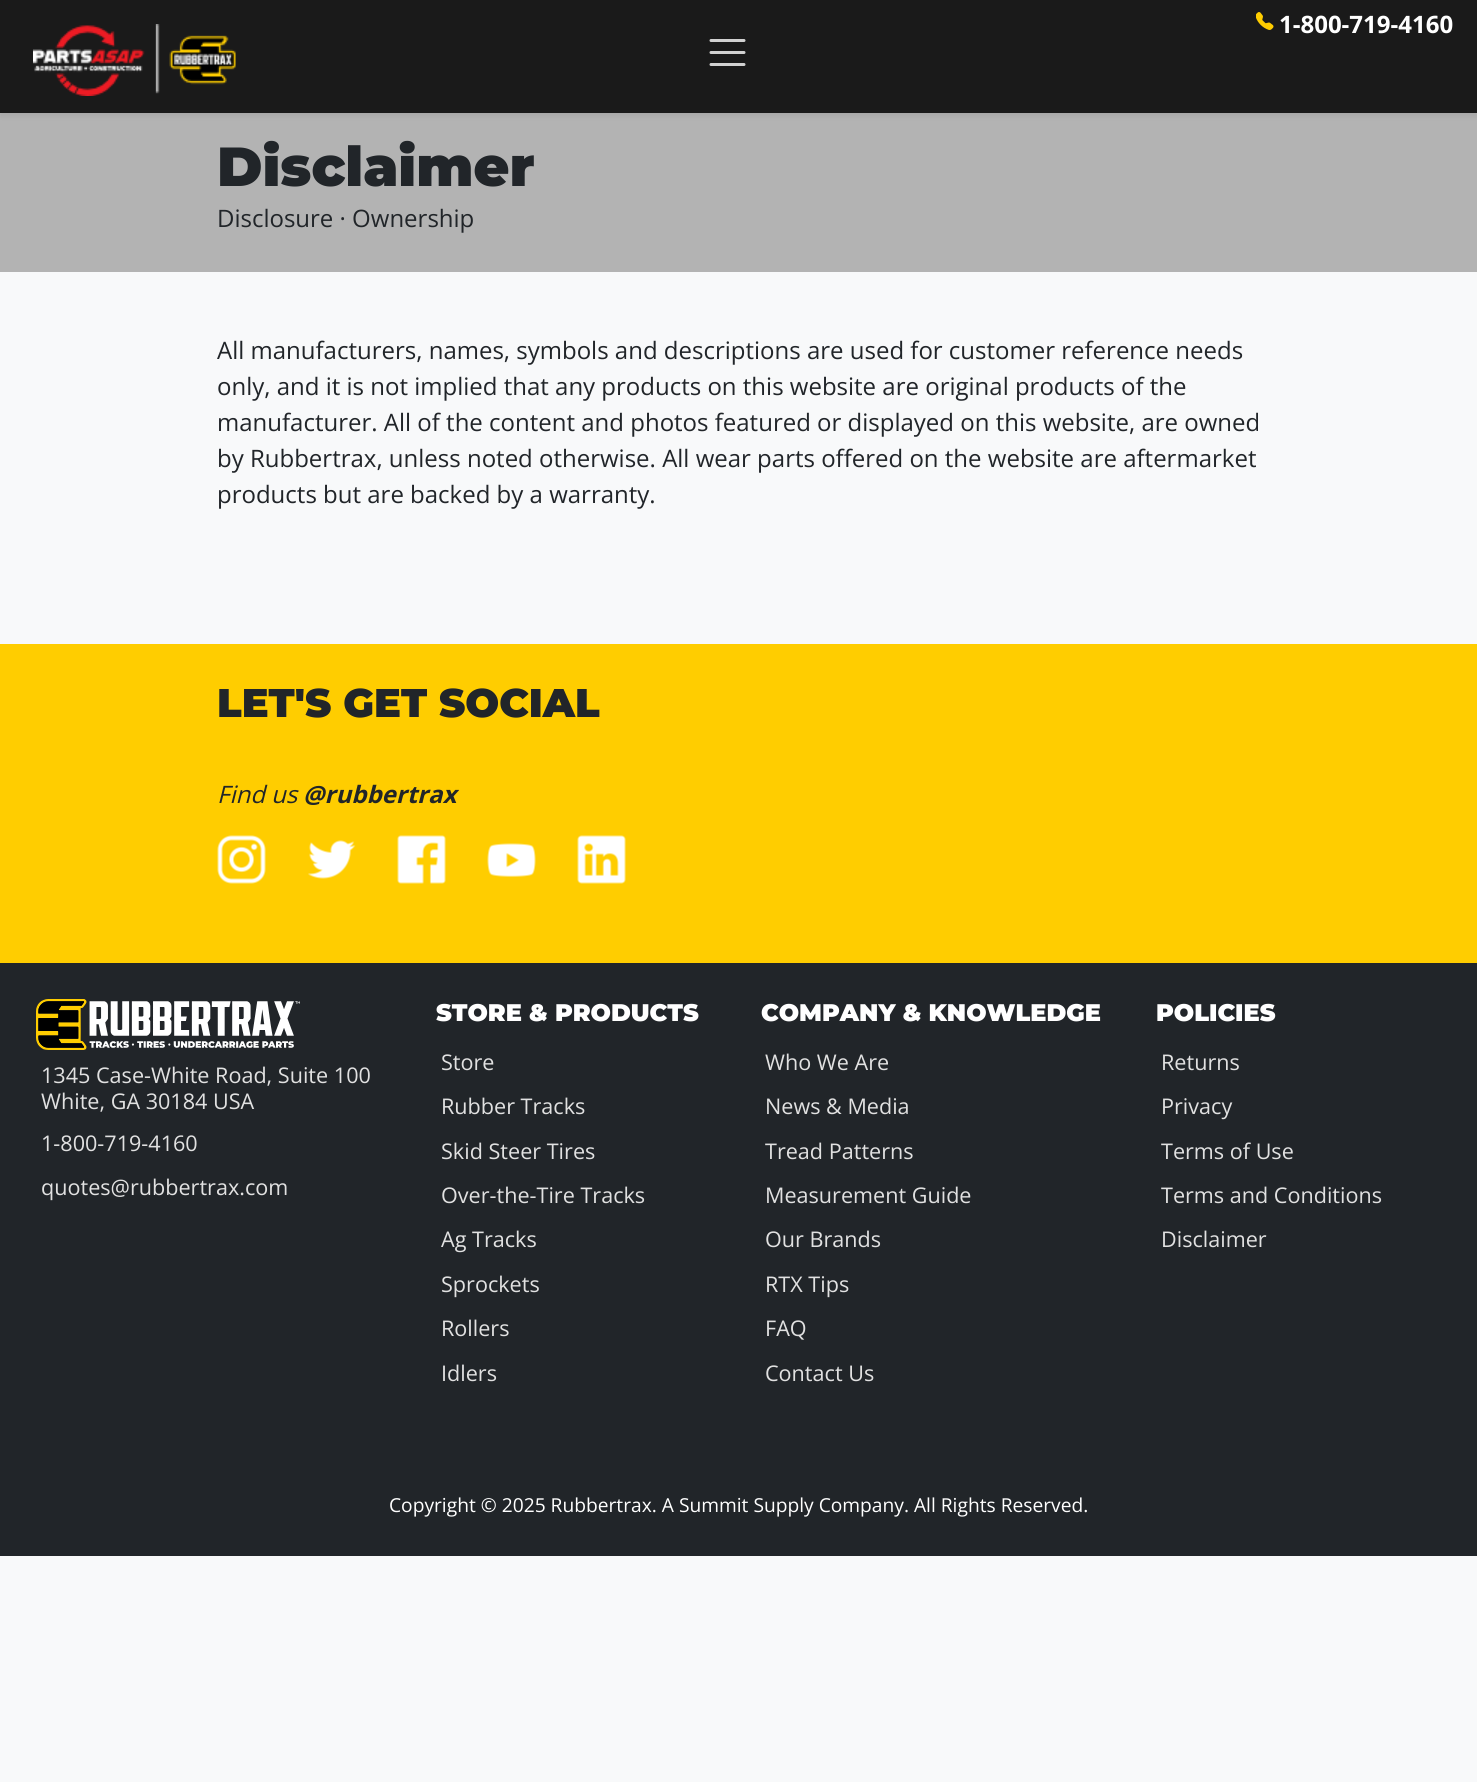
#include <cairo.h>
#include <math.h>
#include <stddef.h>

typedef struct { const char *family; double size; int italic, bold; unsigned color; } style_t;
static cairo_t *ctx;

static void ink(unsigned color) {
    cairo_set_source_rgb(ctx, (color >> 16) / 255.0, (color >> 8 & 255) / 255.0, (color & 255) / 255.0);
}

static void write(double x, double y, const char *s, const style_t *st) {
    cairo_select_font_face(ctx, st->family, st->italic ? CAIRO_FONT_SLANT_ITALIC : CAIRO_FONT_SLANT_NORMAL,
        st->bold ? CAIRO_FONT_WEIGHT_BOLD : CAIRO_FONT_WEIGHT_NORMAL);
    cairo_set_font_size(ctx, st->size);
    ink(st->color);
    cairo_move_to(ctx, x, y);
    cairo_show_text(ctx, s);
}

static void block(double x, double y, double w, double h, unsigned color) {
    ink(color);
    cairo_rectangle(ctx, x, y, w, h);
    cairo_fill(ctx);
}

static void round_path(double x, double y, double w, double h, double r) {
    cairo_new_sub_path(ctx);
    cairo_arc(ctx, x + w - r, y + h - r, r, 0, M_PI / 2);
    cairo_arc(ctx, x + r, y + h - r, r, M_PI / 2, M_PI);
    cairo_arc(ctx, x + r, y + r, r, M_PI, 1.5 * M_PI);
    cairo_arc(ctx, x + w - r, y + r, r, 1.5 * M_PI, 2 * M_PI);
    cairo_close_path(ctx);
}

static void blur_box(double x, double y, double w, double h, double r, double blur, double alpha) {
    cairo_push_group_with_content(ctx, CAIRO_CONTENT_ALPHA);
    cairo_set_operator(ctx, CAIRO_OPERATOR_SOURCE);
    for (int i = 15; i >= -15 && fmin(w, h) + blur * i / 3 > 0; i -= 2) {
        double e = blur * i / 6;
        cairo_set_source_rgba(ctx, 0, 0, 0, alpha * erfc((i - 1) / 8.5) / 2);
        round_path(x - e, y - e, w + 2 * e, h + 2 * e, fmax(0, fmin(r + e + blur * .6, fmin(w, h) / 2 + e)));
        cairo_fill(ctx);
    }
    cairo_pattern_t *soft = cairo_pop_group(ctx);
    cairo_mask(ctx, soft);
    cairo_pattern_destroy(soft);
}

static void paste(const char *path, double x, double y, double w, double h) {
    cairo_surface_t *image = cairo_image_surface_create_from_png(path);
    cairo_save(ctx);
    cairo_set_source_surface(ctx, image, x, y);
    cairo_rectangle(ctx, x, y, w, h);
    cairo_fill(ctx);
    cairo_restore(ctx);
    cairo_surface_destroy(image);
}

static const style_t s1 = {"Open Sans", 24, 0, 1, 0xffffff};
static const style_t s2 = {"Montserrat Thin", 55, 0, 0, 0x212529};
static const style_t s3 = {"Open Sans", 24, 0, 0, 0x212529};
static const style_t s4 = {"Montserrat Thin", 40, 0, 0, 0x212529};
static const style_t s5 = {"Open Sans", 24, 1, 0, 0x212529};
static const style_t s6 = {"Open Sans", 24, 1, 1, 0x212529};
static const style_t s7 = {"Open Sans", 21.6, 0, 0, 0xe1e1e1};
static const style_t s8 = {"Montserrat Thin", 24, 0, 0, 0xffffff};
static const style_t s9 = {"Open Sans", 19.2, 0, 0, 0xffffff};

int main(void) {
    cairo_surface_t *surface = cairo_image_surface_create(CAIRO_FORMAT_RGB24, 1477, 1782);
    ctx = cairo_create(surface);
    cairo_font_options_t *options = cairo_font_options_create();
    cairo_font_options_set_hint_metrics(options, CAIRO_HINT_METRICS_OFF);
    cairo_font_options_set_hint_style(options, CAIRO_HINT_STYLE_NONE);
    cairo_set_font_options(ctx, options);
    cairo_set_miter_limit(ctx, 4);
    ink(0xf8f9fa);
    cairo_paint(ctx);
    block(0, 113, 1477, 159, 0xb3b3b3);
    ink(0x000000);
    blur_box(0, 3, 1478, 113, 0, 3, 0.07);
    block(0, 0, 1477, 113, 0x1a1a1a);
    paste("pic1.png", 33, 24, 203, 72);
    cairo_new_path(ctx);
    cairo_move_to(ctx, 711, 40.5);
    cairo_line_to(ctx, 744, 40.5);
    cairo_move_to(ctx, 711, 52.5);
    cairo_line_to(ctx, 744, 52.5);
    cairo_move_to(ctx, 711, 64.5);
    cairo_line_to(ctx, 744, 64.5);
    ink(0xd1d1d1);
    cairo_set_line_width(ctx, 3);
    cairo_set_line_cap(ctx, CAIRO_LINE_CAP_ROUND);
    cairo_stroke(ctx);
    paste("pic2.png", 1256, 12, 18, 18);
    write(1279, 33, "1-800-719-4160", &s1);
    write(217, 186, "Disclaimer", &s2);
    write(217, 227, "Disclosure · Ownership", &s3);
    write(217, 359, "All manufacturers, names, symbols and descriptions are used for customer reference needs", &s3);
    write(217, 395, "only, and it is not implied that any products on this website are original products of the", &s3);
    write(217, 431, "manufacturer. All of the content and photos featured or displayed on this website, are owned", &s3);
    write(217, 467, "by Rubbertrax, unless noted otherwise. All wear parts offered on the website are aftermarket", &s3);
    write(217, 503, "products but are backed by a warranty.", &s3);
    block(0, 644, 1477, 319, 0xffcd00);
    write(217, 717, "LET'S GET SOCIAL", &s4);
    write(217, 803, "Find us", &s5);
    write(303, 803, "@rubbertrax", &s6);
    paste("pic3.png", 217, 835, 49, 49);
    paste("pic4.png", 308, 840, 48, 39);
    paste("pic5.png", 397, 835, 49, 49);
    paste("pic6.png", 487, 843, 49, 34);
    paste("pic7.png", 577, 835, 49, 49);
    block(0, 963, 1477, 593, 0x212529);
    paste("pic8.png", 36, 999, 264, 51);
    write(41, 1083, "1345 Case-White Road, Suite 100", &s7);
    write(41, 1109, "White, GA 30184 USA", &s7);
    write(41, 1151, "1-800-719-4160", &s7);
    write(41, 1195, "quotes@rubbertrax.com", &s7);
    write(436, 1021, "STORE & PRODUCTS", &s8);
    write(441, 1070, "Store", &s7);
    write(441, 1114, "Rubber Tracks", &s7);
    write(441, 1159, "Skid Steer Tires", &s7);
    write(441, 1203, "Over-the-Tire Tracks", &s7);
    write(441, 1247, "Ag Tracks", &s7);
    write(441, 1292, "Sprockets", &s7);
    write(441, 1336, "Rollers", &s7);
    write(441, 1381, "Idlers", &s7);
    write(761, 1021, "COMPANY & KNOWLEDGE", &s8);
    write(765, 1070, "Who We Are", &s7);
    write(765, 1114, "News & Media", &s7);
    write(765, 1159, "Tread Patterns", &s7);
    write(765, 1203, "Measurement Guide", &s7);
    write(765, 1247, "Our Brands", &s7);
    write(765, 1292, "RTX Tips", &s7);
    write(765, 1336, "FAQ", &s7);
    write(765, 1381, "Contact Us", &s7);
    write(1156, 1021, "POLICIES", &s8);
    write(1161, 1070, "Returns", &s7);
    write(1161, 1114, "Privacy", &s7);
    write(1161, 1159, "Terms of Use", &s7);
    write(1161, 1203, "Terms and Conditions", &s7);
    write(1161, 1247, "Disclaimer", &s7);
    write(389, 1512, "Copyright © 2025 Rubbertrax. A Summit Supply Company. All Rights Reserved.", &s9);
    cairo_surface_write_to_png(surface, "screenshot.png");
    cairo_font_options_destroy(options);
    cairo_destroy(ctx);
    cairo_surface_destroy(surface);
    return 0;
}
